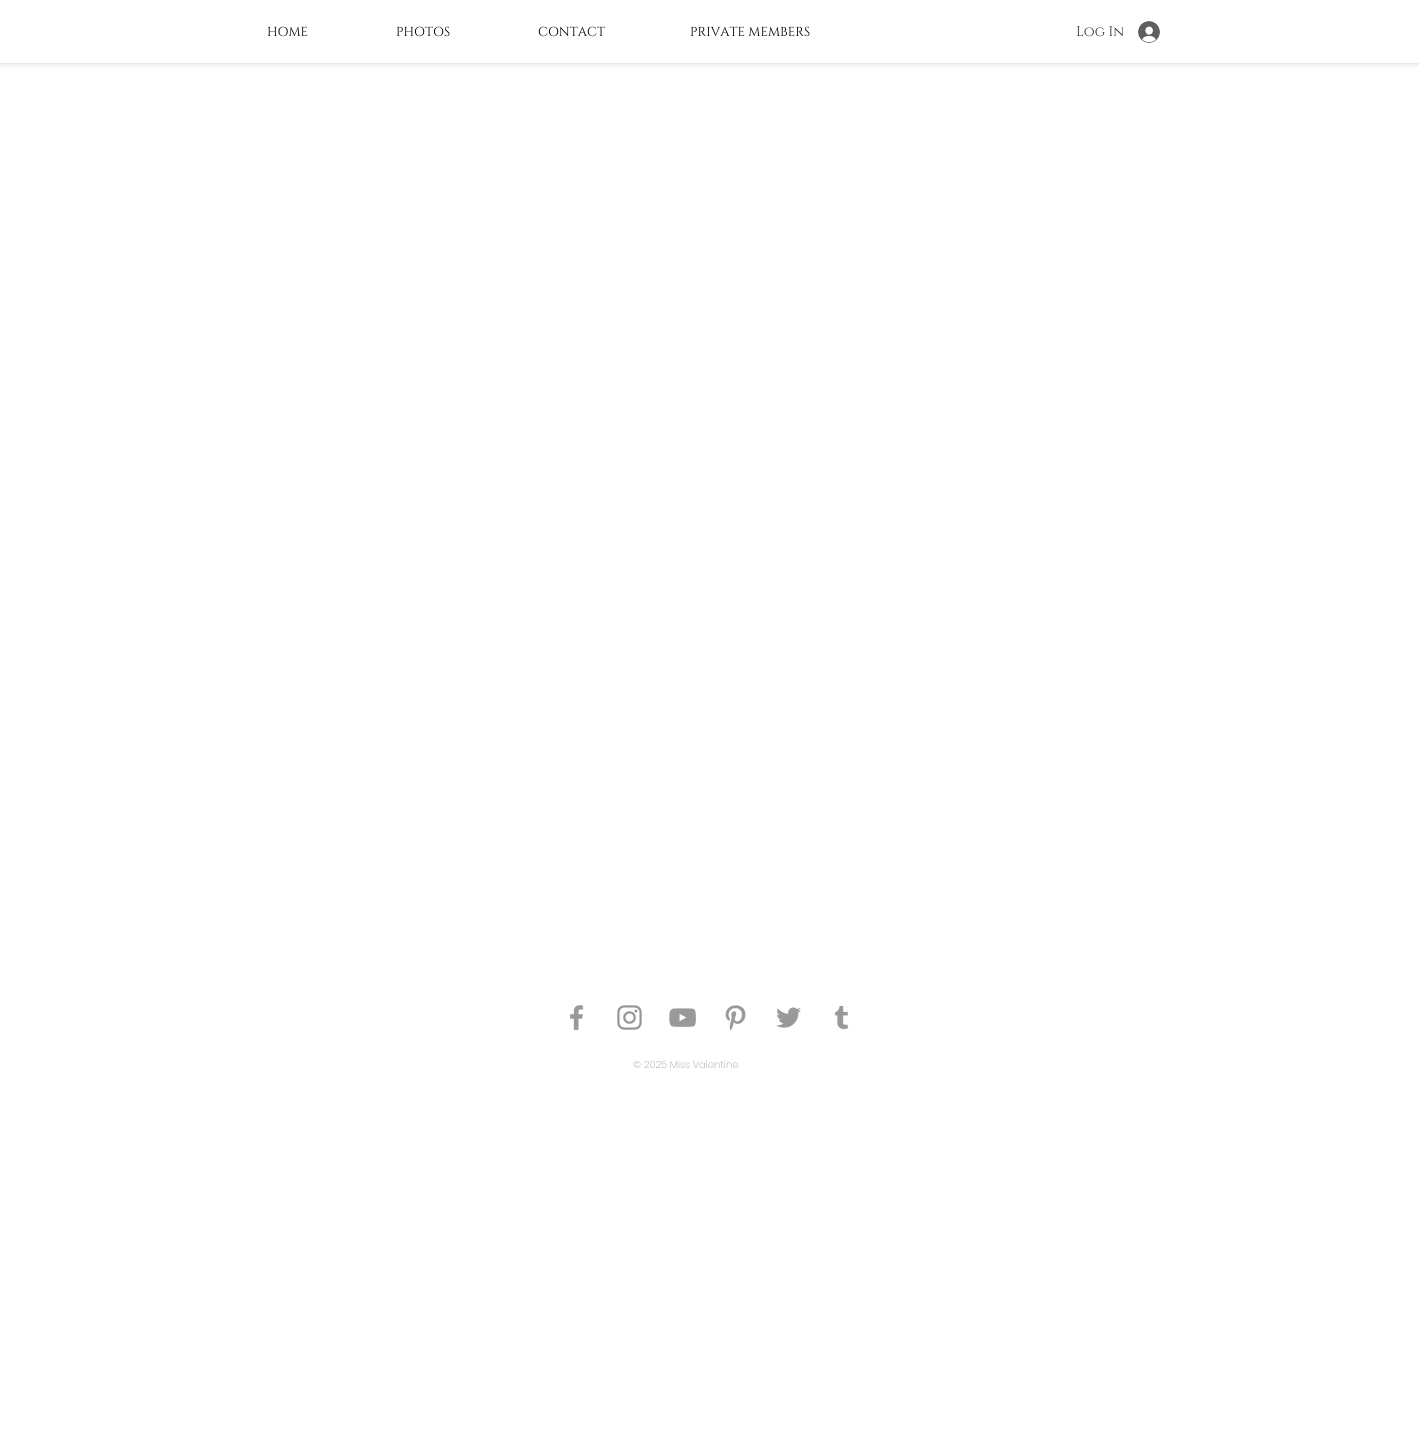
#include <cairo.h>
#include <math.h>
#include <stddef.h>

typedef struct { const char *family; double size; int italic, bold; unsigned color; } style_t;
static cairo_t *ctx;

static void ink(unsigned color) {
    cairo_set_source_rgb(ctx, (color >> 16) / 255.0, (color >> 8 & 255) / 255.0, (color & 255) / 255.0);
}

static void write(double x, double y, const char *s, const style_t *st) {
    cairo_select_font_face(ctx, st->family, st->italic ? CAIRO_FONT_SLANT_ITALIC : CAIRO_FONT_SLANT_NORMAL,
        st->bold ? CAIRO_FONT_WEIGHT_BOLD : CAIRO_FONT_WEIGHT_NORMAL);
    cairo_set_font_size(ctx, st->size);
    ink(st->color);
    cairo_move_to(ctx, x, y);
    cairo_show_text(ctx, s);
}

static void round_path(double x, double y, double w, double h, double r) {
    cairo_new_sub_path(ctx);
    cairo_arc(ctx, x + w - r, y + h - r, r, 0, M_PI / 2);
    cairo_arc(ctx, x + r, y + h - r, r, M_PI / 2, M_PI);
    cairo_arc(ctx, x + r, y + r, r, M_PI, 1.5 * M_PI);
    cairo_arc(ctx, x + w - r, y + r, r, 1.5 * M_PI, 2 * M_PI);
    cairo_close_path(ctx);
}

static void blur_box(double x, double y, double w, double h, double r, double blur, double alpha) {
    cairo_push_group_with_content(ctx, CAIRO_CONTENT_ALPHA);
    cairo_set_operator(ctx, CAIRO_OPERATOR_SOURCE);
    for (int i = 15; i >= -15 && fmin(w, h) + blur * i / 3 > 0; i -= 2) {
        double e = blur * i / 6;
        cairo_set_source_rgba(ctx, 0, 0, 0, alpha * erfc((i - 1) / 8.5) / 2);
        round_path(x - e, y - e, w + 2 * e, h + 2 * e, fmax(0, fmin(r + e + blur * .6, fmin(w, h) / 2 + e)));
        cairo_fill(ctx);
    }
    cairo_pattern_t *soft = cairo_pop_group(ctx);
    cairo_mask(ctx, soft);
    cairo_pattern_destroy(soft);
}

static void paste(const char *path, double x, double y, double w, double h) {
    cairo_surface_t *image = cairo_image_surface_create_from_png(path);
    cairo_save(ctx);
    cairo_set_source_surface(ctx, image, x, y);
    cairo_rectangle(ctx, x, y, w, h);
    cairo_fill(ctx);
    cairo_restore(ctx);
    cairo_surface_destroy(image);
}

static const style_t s1 = {"Cinzel", 13, 0, 0, 0x000000};
static const style_t s2 = {"Cinzel", 14, 0, 0, 0x2f2e2e};
static const style_t s3 = {"Poppins ExtraLight", 10, 0, 0, 0xa0a09f};

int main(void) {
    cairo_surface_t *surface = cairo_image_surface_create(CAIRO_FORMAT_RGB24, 1419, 1443);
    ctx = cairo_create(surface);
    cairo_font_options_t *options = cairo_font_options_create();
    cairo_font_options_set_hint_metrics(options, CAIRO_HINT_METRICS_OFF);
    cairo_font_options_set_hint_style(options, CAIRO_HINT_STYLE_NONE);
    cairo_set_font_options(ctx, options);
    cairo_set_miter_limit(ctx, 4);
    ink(0xffffff);
    cairo_paint(ctx);
    cairo_save(ctx);
    cairo_rectangle(ctx, 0, 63, 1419, 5);
    cairo_clip(ctx);
    ink(0xa0a09f);
    blur_box(0, 1, 1419, 63, 0, 2.5, 0.4);
    cairo_restore(ctx);
    write(267, 36, "HOME", &s1);
    write(396, 36, "PHOTOS", &s1);
    write(538, 36, "CONTACT", &s1);
    write(690, 36, "PRIVATE MEMBERS", &s1);
    write(1076, 36, "Log In", &s2);
    paste("pic1.png", 1138, 21, 22, 22);
    paste("pic2.png", 569, 1005, 15, 26);
    paste("pic3.png", 617, 1005, 25, 25);
    paste("pic4.png", 669, 1008, 28, 19);
    paste("pic5.png", 725, 1005, 21, 25);
    paste("pic6.png", 776, 1007, 25, 21);
    paste("pic7.png", 834, 1005, 15, 25);
    write(633, 1068, "© 2025 Miss Valentine", &s3);
    cairo_surface_write_to_png(surface, "screenshot.png");
    cairo_font_options_destroy(options);
    cairo_destroy(ctx);
    cairo_surface_destroy(surface);
    return 0;
}
